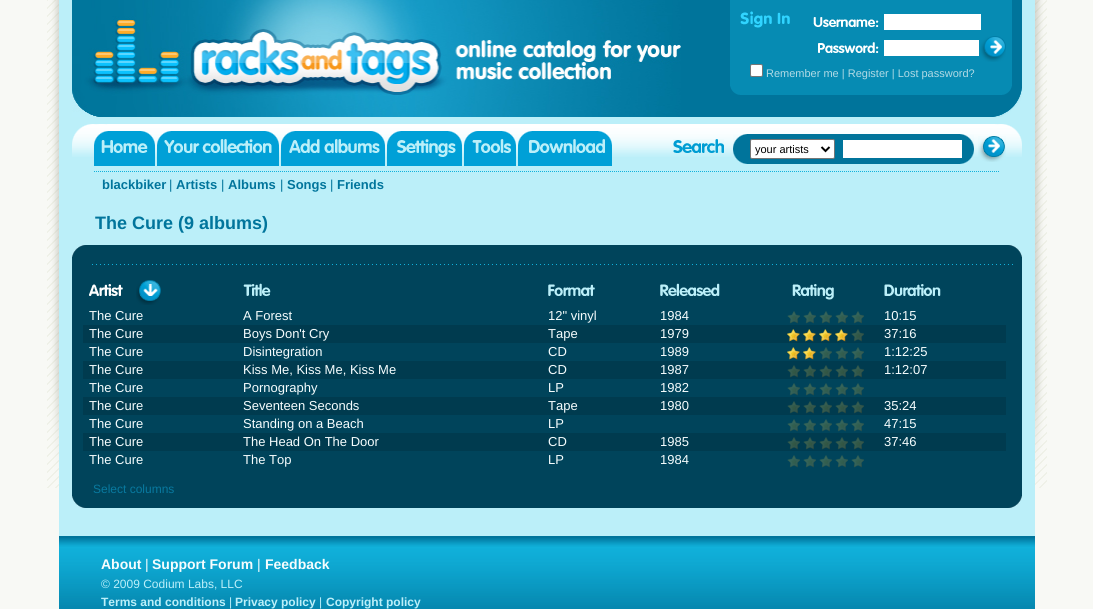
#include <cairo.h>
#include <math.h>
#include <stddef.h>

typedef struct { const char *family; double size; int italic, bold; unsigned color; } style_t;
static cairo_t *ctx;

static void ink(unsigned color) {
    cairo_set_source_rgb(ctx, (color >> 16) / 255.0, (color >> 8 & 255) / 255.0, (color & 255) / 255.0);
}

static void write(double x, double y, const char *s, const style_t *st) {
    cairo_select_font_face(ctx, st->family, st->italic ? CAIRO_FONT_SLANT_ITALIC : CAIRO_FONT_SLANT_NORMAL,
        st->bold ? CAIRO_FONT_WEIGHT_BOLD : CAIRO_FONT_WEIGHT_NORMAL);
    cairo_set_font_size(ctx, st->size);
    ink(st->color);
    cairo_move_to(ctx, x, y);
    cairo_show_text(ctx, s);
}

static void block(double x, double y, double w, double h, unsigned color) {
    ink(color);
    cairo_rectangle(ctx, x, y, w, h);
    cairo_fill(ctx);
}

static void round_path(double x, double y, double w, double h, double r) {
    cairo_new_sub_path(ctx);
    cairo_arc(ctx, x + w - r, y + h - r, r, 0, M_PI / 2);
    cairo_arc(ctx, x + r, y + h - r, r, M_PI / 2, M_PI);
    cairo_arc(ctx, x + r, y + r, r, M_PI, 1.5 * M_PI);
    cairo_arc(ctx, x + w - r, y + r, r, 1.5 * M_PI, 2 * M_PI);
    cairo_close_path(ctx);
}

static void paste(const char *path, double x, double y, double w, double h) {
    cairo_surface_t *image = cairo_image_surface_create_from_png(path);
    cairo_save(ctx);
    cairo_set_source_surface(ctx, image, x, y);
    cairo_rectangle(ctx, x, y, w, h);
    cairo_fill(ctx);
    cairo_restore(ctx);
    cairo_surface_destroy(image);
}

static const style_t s1 = {"Liberation Sans", 11, 0, 0, 0xb1dae5};
static const style_t s2 = {"Liberation Sans", 11, 0, 0, 0x000000};
static const style_t s3 = {"Liberation Sans", 13, 0, 1, 0x01759c};
static const style_t s4 = {"Liberation Sans", 13, 0, 0, 0x01759c};
static const style_t s5 = {"Liberation Sans", 18, 0, 1, 0x01759c};
static const style_t s6 = {"Liberation Sans", 13, 0, 0, 0xf6fdfe};
static const style_t s7 = {"Liberation Sans", 12, 0, 0, 0x08799f};
static const style_t s8 = {"Liberation Sans", 14, 0, 1, 0xf6fdfe};
static const style_t s9 = {"Liberation Sans", 14, 0, 0, 0xf6fdfe};
static const style_t s10 = {"Liberation Sans", 12, 0, 0, 0xbbeff9};
static const style_t s11 = {"Liberation Sans", 12, 0, 1, 0xbbeff9};

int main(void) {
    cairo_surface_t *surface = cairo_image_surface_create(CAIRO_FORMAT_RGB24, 1093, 609);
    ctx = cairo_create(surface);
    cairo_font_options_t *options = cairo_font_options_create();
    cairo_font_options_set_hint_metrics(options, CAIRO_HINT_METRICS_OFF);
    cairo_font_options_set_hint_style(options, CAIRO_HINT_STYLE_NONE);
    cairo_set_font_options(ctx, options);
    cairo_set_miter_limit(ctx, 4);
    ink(0xf8f9f5);
    cairo_paint(ctx);
    paste("pic1.png", 47, 0, 12, 488);
    block(59, 0, 976, 536, 0xbbeff9);
    block(681, 0, 341, 117, 0x00749b);
    paste("pic2.png", 993, 88, 29, 29);
    paste("pic3.png", 72, 0, 609, 117);
    block(730, 0, 282, 86, 0x068bb3);
    paste("pic4.png", 730, 86, 282, 9);
    paste("pic5.png", 740, 11, 50, 17);
    paste("pic6.png", 813, 17, 66, 10);
    block(884, 14, 97, 16, 0xffffff);
    paste("pic7.png", 818, 42, 61, 11);
    block(884, 40, 95, 16, 0xffffff);
    paste("pic8.png", 979, 36, 27, 26);
    round_path(750.5, 64.5, 12, 12, 1.5);
    cairo_fill_preserve(ctx);
    ink(0x767676);
    cairo_set_line_width(ctx, 1);
    cairo_stroke(ctx);
    write(766, 77, "Remember me | Register | Lost password?", &s1);
    paste("pic9.png", 72, 124, 950, 33);
    paste("pic10.png", 94, 131, 61, 35);
    paste("pic11.png", 157, 131, 122, 35);
    paste("pic12.png", 281, 131, 104, 35);
    paste("pic13.png", 387, 131, 75, 35);
    paste("pic14.png", 464, 131, 52, 35);
    paste("pic15.png", 518, 131, 94, 35);
    paste("pic16.png", 673, 139, 51, 14);
    block(747, 134, 213, 30, 0x00749b);
    paste("pic17.png", 960, 134, 14, 30);
    paste("pic18.png", 733, 134, 14, 30);
    ink(0xffffff);
    round_path(750.5, 139.5, 84, 19, 1.5);
    cairo_fill_preserve(ctx);
    ink(0x767676);
    cairo_stroke(ctx);
    cairo_new_path(ctx);
    cairo_move_to(ctx, 821.5, 147);
    cairo_line_to(ctx, 825.5, 151);
    cairo_line_to(ctx, 829.5, 147);
    ink(0x000000);
    cairo_set_line_width(ctx, 2);
    cairo_stroke(ctx);
    write(755, 153, "your artists", &s2);
    block(843, 140, 119, 18, 0xffffff);
    paste("pic19.png", 978, 136, 28, 26);
    paste("pic20.png", 94, 171, 905, 1);
    write(102, 189, "blackbiker", &s3);
    write(169, 189, "|", &s4);
    write(176, 189, "Artists", &s3);
    write(221, 189, "|", &s4);
    write(228, 189, "Albums", &s3);
    write(280, 189, "|", &s4);
    write(287, 189, "Songs", &s3);
    write(330, 189, "|", &s4);
    write(337, 189, "Friends", &s3);
    write(95, 229, "The Cure (9 albums)", &s5);
    block(72, 257, 950, 239, 0x00445b);
    paste("pic21.png", 72, 245, 950, 12);
    paste("pic22.png", 92, 264, 921, 1);
    paste("pic23.png", 89, 284, 34, 12);
    paste("pic24.png", 136, 280, 25, 25);
    paste("pic25.png", 243, 283, 28, 13);
    paste("pic26.png", 548, 284, 47, 12);
    paste("pic27.png", 660, 283, 60, 13);
    paste("pic28.png", 792, 284, 42, 16);
    paste("pic29.png", 884, 284, 57, 12);
    write(89, 320, "The Cure", &s6);
    write(243, 320, "A Forest", &s6);
    write(548, 320, "12\" vinyl", &s6);
    write(660, 320, "1984", &s6);
    paste("pic30.png", 787, 311, 77, 13);
    write(884, 320, "10:15", &s6);
    block(83, 325, 923, 18, 0x003b4f);
    write(89, 338, "The Cure", &s6);
    write(243, 338, "Boys Don't Cry", &s6);
    write(548, 338, "Tape", &s6);
    write(660, 338, "1979", &s6);
    paste("pic31.png", 787, 329, 77, 13);
    write(884, 338, "37:16", &s6);
    write(89, 356, "The Cure", &s6);
    write(243, 356, "Disintegration", &s6);
    write(548, 356, "CD", &s6);
    write(660, 356, "1989", &s6);
    paste("pic32.png", 787, 347, 77, 13);
    write(884, 356, "1:12:25", &s6);
    block(83, 361, 923, 18, 0x003b4f);
    write(89, 374, "The Cure", &s6);
    write(243, 374, "Kiss Me, Kiss Me, Kiss Me", &s6);
    write(548, 374, "CD", &s6);
    write(660, 374, "1987", &s6);
    paste("pic33.png", 787, 365, 77, 13);
    write(884, 374, "1:12:07", &s6);
    write(89, 392, "The Cure", &s6);
    write(243, 392, "Pornography", &s6);
    write(548, 392, "LP", &s6);
    write(660, 392, "1982", &s6);
    paste("pic30.png", 787, 383, 77, 13);
    block(83, 397, 923, 18, 0x003b4f);
    write(89, 410, "The Cure", &s6);
    write(243, 410, "Seventeen Seconds", &s6);
    write(548, 410, "Tape", &s6);
    write(660, 410, "1980", &s6);
    paste("pic33.png", 787, 401, 77, 13);
    write(884, 410, "35:24", &s6);
    write(89, 428, "The Cure", &s6);
    write(243, 428, "Standing on a Beach", &s6);
    write(548, 428, "LP", &s6);
    paste("pic30.png", 787, 419, 77, 13);
    write(884, 428, "47:15", &s6);
    block(83, 433, 923, 18, 0x003b4f);
    write(89, 446, "The Cure", &s6);
    write(243, 446, "The Head On The Door", &s6);
    write(548, 446, "CD", &s6);
    write(660, 446, "1985", &s6);
    paste("pic33.png", 787, 437, 77, 13);
    write(884, 446, "37:46", &s6);
    write(89, 464, "The Cure", &s6);
    write(243, 464, "The Top", &s6);
    write(548, 464, "LP", &s6);
    write(660, 464, "1984", &s6);
    paste("pic30.png", 787, 455, 77, 13);
    write(93, 493, "Select columns", &s7);
    paste("pic34.png", 72, 496, 950, 12);
    block(59, 536, 976, 2, 0x00749b);
    paste("pic35.png", 59, 538, 976, 71);
    write(101, 569, "About", &s8);
    write(145, 569, "|", &s9);
    write(152, 569, "Support Forum", &s8);
    write(257, 569, "|", &s9);
    write(265, 569, "Feedback", &s8);
    write(101, 588, "© 2009 Codium Labs, LLC", &s10);
    write(101, 606, "Terms and conditions", &s11);
    write(229, 606, "|", &s10);
    write(235, 606, "Privacy policy", &s11);
    write(319, 606, "|", &s10);
    write(326, 606, "Copyright policy", &s11);
    paste("pic36.png", 1035, 0, 12, 488);
    cairo_surface_write_to_png(surface, "screenshot.png");
    cairo_font_options_destroy(options);
    cairo_destroy(ctx);
    cairo_surface_destroy(surface);
    return 0;
}
